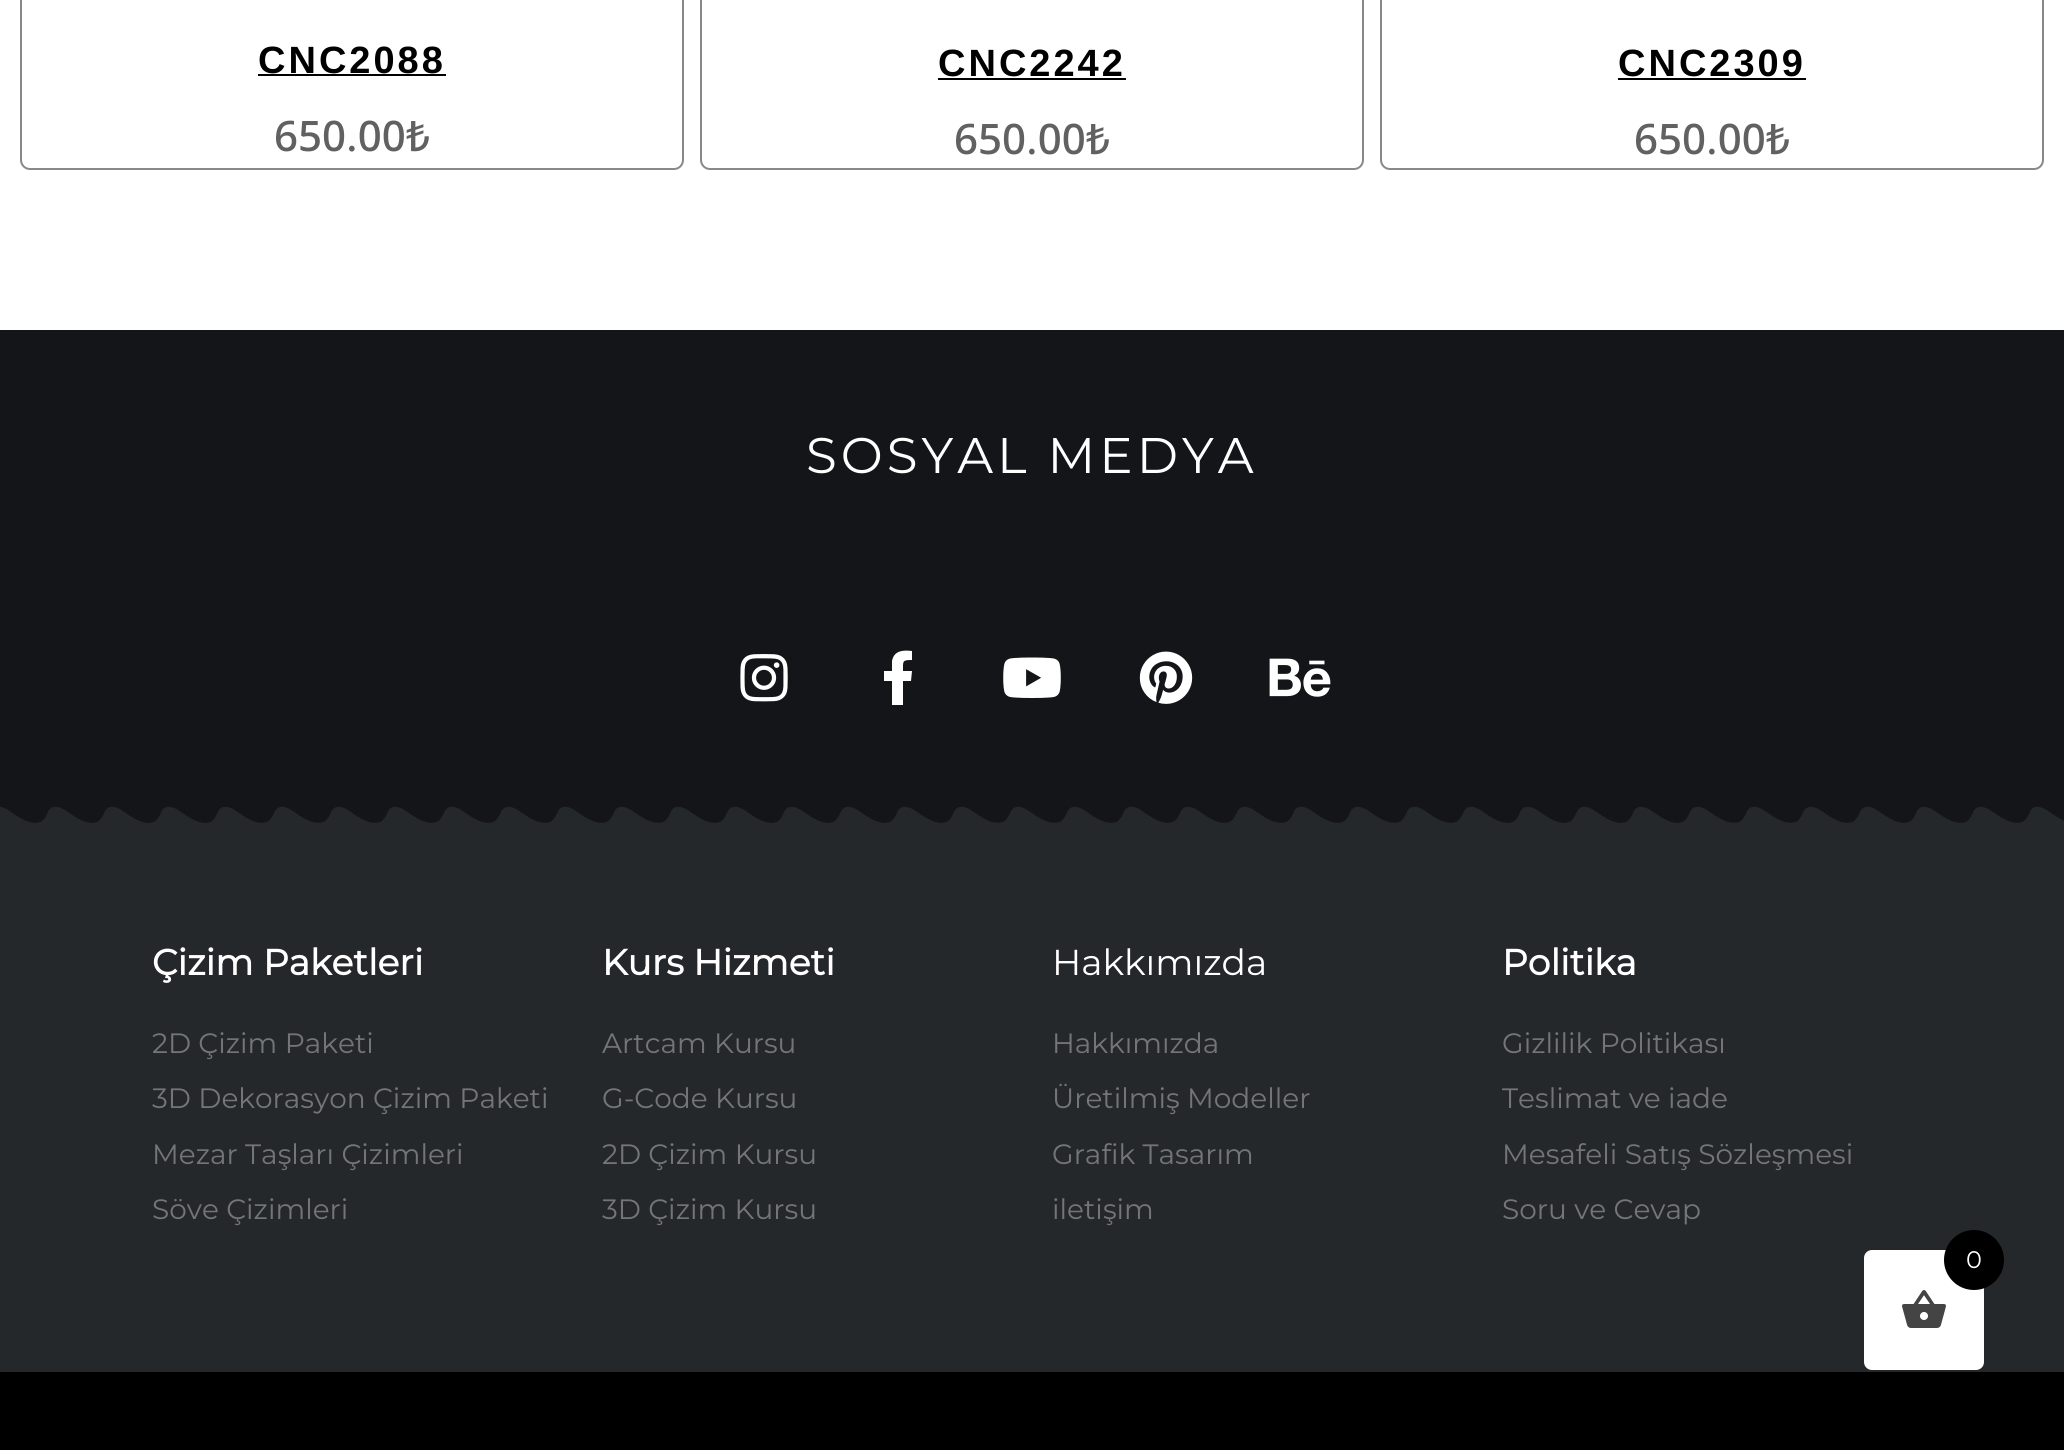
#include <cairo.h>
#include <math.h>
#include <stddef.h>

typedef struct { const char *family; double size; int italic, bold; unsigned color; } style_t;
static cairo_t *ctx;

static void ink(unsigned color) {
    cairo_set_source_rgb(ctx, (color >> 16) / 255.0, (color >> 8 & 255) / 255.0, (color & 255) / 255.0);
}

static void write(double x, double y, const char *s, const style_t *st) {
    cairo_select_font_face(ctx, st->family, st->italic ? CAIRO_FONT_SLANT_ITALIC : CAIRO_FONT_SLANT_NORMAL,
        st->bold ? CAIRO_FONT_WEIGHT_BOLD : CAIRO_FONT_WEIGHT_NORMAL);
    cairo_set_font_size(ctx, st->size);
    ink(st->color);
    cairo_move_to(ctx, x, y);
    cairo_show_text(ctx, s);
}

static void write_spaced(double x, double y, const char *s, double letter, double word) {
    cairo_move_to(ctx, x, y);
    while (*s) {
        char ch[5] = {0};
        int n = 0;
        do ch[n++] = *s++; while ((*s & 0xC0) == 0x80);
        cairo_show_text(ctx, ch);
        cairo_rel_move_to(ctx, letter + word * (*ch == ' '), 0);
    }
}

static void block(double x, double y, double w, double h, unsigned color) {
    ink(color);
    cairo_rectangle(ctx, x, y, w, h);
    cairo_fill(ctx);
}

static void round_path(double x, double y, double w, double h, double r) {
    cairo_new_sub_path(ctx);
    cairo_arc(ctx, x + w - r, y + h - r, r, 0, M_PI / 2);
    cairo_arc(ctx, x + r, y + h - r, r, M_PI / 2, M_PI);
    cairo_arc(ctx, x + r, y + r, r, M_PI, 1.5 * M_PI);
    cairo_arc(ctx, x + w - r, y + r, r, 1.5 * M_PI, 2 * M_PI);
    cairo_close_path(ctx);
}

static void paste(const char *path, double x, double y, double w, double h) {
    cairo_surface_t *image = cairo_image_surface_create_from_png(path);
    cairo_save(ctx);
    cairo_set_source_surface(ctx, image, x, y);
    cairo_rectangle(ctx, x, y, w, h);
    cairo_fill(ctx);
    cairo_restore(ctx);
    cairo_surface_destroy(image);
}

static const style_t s1 = {"Noto Traditional Nushu Medium", 42, 0, 0, 0x616161};
static const style_t s2 = {"Noto Sans Medium", 42, 0, 0, 0x616161};
static const style_t s3 = {"Montserrat", 36, 0, 1, 0xffffff};
static const style_t s4 = {"Montserrat Thin", 28, 0, 0, 0x737577};
static const style_t s5 = {"Montserrat Thin", 36, 0, 0, 0xffffff};
static const style_t s6 = {"Montserrat Thin", 24, 0, 0, 0xffffff};

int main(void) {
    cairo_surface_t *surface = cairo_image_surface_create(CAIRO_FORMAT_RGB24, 2064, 1450);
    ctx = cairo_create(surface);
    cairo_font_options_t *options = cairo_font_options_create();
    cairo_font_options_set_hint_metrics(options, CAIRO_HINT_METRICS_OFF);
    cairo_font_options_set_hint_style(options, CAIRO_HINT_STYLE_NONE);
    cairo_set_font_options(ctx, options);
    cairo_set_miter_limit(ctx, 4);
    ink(0xffffff);
    cairo_paint(ctx);
    round_path(21, -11, 662, 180, 9);
    ink(0x888888);
    cairo_stroke(ctx);
    cairo_select_font_face(ctx, "Liberation Sans", CAIRO_FONT_SLANT_NORMAL, CAIRO_FONT_WEIGHT_BOLD);
    cairo_set_font_size(ctx, 38);
    ink(0x000000);
    write_spaced(258, 73, "CNC2088", 3, 0);
    block(258, 74, 188, 2, 0x000000);
    write(274, 151, "650.00", &s1);
    write(406, 151, "₺", &s2);
    round_path(701, -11, 662, 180, 9);
    ink(0x888888);
    cairo_stroke(ctx);
    cairo_select_font_face(ctx, "Liberation Sans", CAIRO_FONT_SLANT_NORMAL, CAIRO_FONT_WEIGHT_BOLD);
    cairo_set_font_size(ctx, 38);
    ink(0x000000);
    write_spaced(938, 76, "CNC2242", 3, 0);
    block(938, 78, 188, 2, 0x000000);
    write(954, 154, "650.00", &s1);
    write(1086, 154, "₺", &s2);
    round_path(1381, -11, 662, 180, 9);
    ink(0x888888);
    cairo_stroke(ctx);
    cairo_select_font_face(ctx, "Liberation Sans", CAIRO_FONT_SLANT_NORMAL, CAIRO_FONT_WEIGHT_BOLD);
    cairo_set_font_size(ctx, 38);
    ink(0x000000);
    write_spaced(1618, 76, "CNC2309", 3, 0);
    block(1618, 78, 188, 2, 0x000000);
    write(1634, 154, "650.00", &s1);
    write(1766, 154, "₺", &s2);
    block(0, 330, 2064, 474, 0x141519);
    cairo_select_font_face(ctx, "Montserrat Thin", CAIRO_FONT_SLANT_NORMAL, CAIRO_FONT_WEIGHT_NORMAL);
    cairo_set_font_size(ctx, 50);
    ink(0xffffff);
    write_spaced(806, 473, "SOSYAL MEDYA", 4, 0);
    paste("pic1.png", 740, 654, 48, 48);
    cairo_new_path(ctx);
    cairo_move_to(ctx, 911, 681);
    cairo_line_to(ctx, 903, 681);
    cairo_line_to(ctx, 903, 705);
    cairo_line_to(ctx, 892, 705);
    cairo_line_to(ctx, 892, 681);
    cairo_line_to(ctx, 884, 681);
    cairo_line_to(ctx, 884, 671);
    cairo_line_to(ctx, 892, 671);
    cairo_line_to(ctx, 892, 661);
    cairo_curve_to(ctx, 894, 650, 904, 650, 912, 651);
    cairo_line_to(ctx, 912, 660);
    cairo_curve_to(ctx, 902, 660, 903, 661, 903, 671);
    cairo_line_to(ctx, 912, 671);
    cairo_close_path(ctx);
    cairo_fill(ctx);
    paste("pic2.png", 1003, 657, 58, 41);
    paste("pic3.png", 1139, 651, 54, 53);
    paste("pic4.png", 1269, 658, 62, 39);
    block(0, 806, 2064, 566, 0x25282b);
    paste("pic5.png", 0, 804, 2064, 19);
    write(152, 975, "Çizim Paketleri", &s3);
    write(152, 1053, "2D Çizim Paketi", &s4);
    write(152, 1108, "3D Dekorasyon Çizim Paketi", &s4);
    write(152, 1164, "Mezar Taşları Çizimleri", &s4);
    write(152, 1219, "Söve Çizimleri", &s4);
    write(602, 975, "Kurs Hizmeti", &s3);
    write(602, 1053, "Artcam Kursu", &s4);
    write(602, 1108, "G-Code Kursu", &s4);
    write(602, 1164, "2D Çizim Kursu", &s4);
    write(602, 1219, "3D Çizim Kursu", &s4);
    write(1052, 975, "Hakkımızda", &s5);
    write(1052, 1053, "Hakkımızda", &s4);
    write(1052, 1108, "Üretilmiş Modeller", &s4);
    write(1052, 1164, "Grafik Tasarım", &s4);
    write(1052, 1219, "iletişim", &s4);
    write(1502, 975, "Politika", &s3);
    write(1502, 1053, "Gizlilik Politikası", &s4);
    write(1502, 1108, "Teslimat ve iade", &s4);
    write(1502, 1164, "Mesafeli Satış Sözleşmesi", &s4);
    write(1502, 1219, "Soru ve Cevap", &s4);
    block(0, 1372, 2064, 78, 0x000000);
    ink(0xffffff);
    round_path(1864, 1250, 120, 120, 8);
    cairo_fill(ctx);
    ink(0x000000);
    cairo_arc(ctx, 1974, 1260, 30, 0, 2 * M_PI);
    cairo_fill(ctx);
    write(1966, 1268, "0", &s6);
    paste("pic6.png", 1902, 1290, 44, 38);
    cairo_surface_write_to_png(surface, "screenshot.png");
    cairo_font_options_destroy(options);
    cairo_destroy(ctx);
    cairo_surface_destroy(surface);
    return 0;
}
